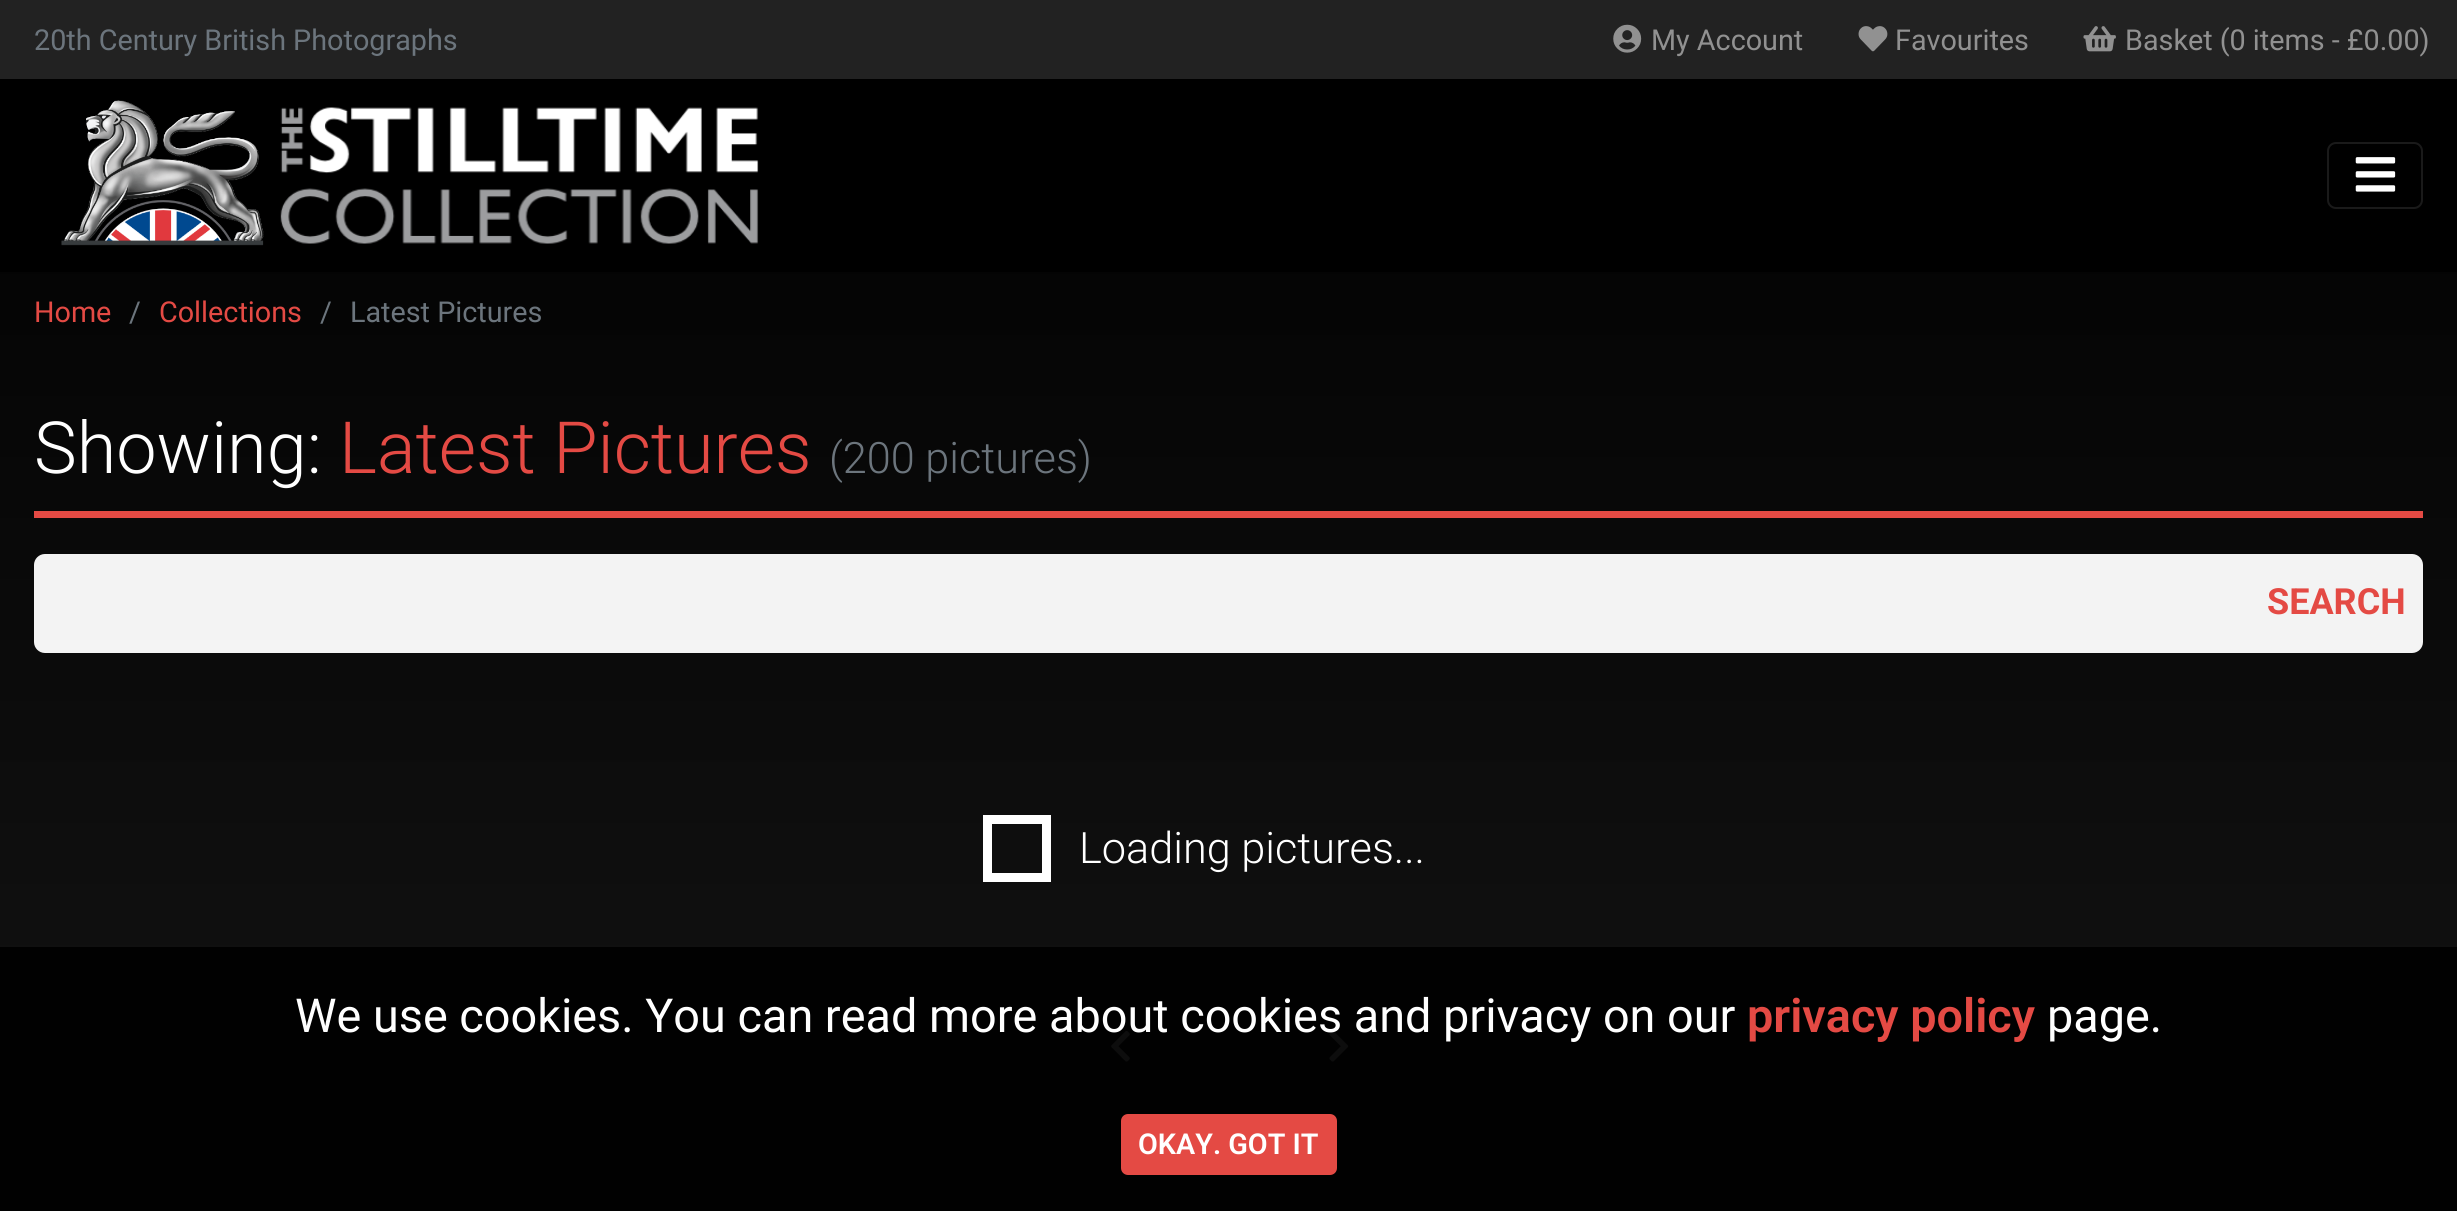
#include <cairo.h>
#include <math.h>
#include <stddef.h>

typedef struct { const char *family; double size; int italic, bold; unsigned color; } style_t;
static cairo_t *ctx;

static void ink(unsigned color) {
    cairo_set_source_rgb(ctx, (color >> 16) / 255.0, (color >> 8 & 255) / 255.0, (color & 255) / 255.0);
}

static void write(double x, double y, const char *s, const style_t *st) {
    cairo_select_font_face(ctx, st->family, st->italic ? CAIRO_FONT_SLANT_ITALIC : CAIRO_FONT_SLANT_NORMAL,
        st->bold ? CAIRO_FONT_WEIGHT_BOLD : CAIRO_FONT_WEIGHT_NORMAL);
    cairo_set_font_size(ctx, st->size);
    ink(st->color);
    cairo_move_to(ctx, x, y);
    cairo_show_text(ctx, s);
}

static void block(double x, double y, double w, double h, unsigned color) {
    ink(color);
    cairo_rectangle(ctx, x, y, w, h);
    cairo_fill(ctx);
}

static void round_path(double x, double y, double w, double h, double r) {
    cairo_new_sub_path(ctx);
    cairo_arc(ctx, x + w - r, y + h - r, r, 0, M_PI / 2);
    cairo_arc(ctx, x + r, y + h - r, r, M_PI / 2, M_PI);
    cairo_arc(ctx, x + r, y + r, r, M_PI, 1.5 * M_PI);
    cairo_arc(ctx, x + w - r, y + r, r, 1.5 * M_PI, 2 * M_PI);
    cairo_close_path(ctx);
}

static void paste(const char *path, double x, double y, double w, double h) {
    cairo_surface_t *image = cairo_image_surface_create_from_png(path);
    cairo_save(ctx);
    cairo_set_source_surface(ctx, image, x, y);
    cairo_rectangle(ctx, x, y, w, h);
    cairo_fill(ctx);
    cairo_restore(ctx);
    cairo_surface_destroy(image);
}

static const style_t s1 = {"Roboto", 28.75, 0, 0, 0x6c757d};
static const style_t s2 = {"Roboto", 28.75, 0, 0, 0x919191};
static const style_t s3 = {"Roboto", 28.75, 0, 0, 0xe44a44};
static const style_t s4 = {"Roboto Light", 72, 0, 0, 0xffffff};
static const style_t s5 = {"Roboto Light", 72, 0, 0, 0xe44a44};
static const style_t s6 = {"Roboto Light", 43.25, 0, 0, 0x6c757d};
static const style_t s7 = {"Roboto", 36, 0, 1, 0xe44a44};
static const style_t s8 = {"Roboto Light", 43.25, 0, 0, 0xffffff};
static const style_t s9 = {"Roboto", 46.8, 0, 0, 0xffffff};
static const style_t s10 = {"Roboto SemiBold", 46.8, 0, 0, 0xe44a44};
static const style_t s11 = {"Roboto SemiBold", 28.75, 0, 0, 0xffffff};

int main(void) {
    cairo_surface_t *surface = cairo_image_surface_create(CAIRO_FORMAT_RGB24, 2457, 1211);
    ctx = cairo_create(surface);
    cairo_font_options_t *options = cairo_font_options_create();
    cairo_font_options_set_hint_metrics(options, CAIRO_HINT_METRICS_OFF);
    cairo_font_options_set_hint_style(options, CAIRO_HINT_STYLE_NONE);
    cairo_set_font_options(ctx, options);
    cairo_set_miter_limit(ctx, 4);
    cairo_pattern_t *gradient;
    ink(0xffffff);
    cairo_paint(ctx);
    gradient = cairo_pattern_create_linear(1229, 0, 1229, 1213);
    cairo_pattern_add_color_stop_rgba(gradient, 0, 0, 0, 0, 1);
    cairo_pattern_add_color_stop_rgba(gradient, 1, 0.078, 0.078, 0.078, 1);
    cairo_set_source(ctx, gradient);
    cairo_pattern_destroy(gradient);
    cairo_rectangle(ctx, 0, 272, 2457, 675);
    cairo_fill(ctx);
    gradient = cairo_pattern_create_linear(1229, 0, 1229, 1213);
    cairo_pattern_add_color_stop_rgba(gradient, 0, 0, 0, 0, 1);
    cairo_pattern_add_color_stop_rgba(gradient, 1, 0.004, 0.004, 0.004, 1);
    cairo_set_source(ctx, gradient);
    cairo_pattern_destroy(gradient);
    cairo_rectangle(ctx, 0, 947, 2457, 264);
    cairo_fill(ctx);
    block(0, 0, 2457, 79, 0x222222);
    write(34, 50, "20th Century British Photographs", &s1);
    paste("pic1.png", 1613, 24, 29, 29);
    write(1651, 50, "My Account", &s2);
    paste("pic2.png", 1858, 26, 30, 26);
    write(1895, 50, "Favourites", &s2);
    paste("pic3.png", 2083, 26, 33, 26);
    write(2125, 50, "Basket (0 items - £0.00)", &s2);
    block(0, 79, 2457, 193, 0x000000);
    paste("pic4.png", 61, 100, 203, 146);
    paste("pic5.png", 280, 107, 479, 137);
    round_path(2328, 143, 94, 65, 8);
    ink(0x1a1a1a);
    cairo_stroke(ctx);
    paste("pic6.png", 2355, 157, 41, 35);
    write(34, 322, "Home", &s3);
    write(129, 322, "/", &s1);
    write(159, 322, "Collections", &s3);
    write(320, 322, "/", &s1);
    write(350, 322, "Latest Pictures", &s1);
    block(34, 511, 2389, 7, 0xe44a44);
    write(34, 473, "Showing:", &s4);
    write(339, 473, "Latest Pictures", &s5);
    write(829, 473, "(200 pictures)", &s6);
    cairo_set_source_rgba(ctx, 1, 1, 1, 0.95);
    round_path(34, 554, 2389, 99, 11);
    cairo_fill(ctx);
    write(2267, 614, "SEARCH", &s7);
    cairo_rectangle(ctx, 987.5, 819.5, 59, 58);
    ink(0xffffff);
    cairo_set_line_width(ctx, 9);
    cairo_stroke(ctx);
    write(1079, 863, "Loading pictures...", &s8);
    paste("pic7.png", 1111, 1030, 19, 32);
    paste("pic8.png", 1329, 1030, 20, 32);
    write(295, 1032, "We use cookies. You can read more about cookies and privacy on our", &s9);
    write(1747, 1032, "privacy policy", &s10);
    write(2047, 1032, "page.", &s9);
    ink(0xe44a44);
    round_path(1121, 1114, 216, 61, 7);
    cairo_fill(ctx);
    write(1138, 1154, "OKAY. GOT IT", &s11);
    cairo_surface_write_to_png(surface, "screenshot.png");
    cairo_font_options_destroy(options);
    cairo_destroy(ctx);
    cairo_surface_destroy(surface);
    return 0;
}
